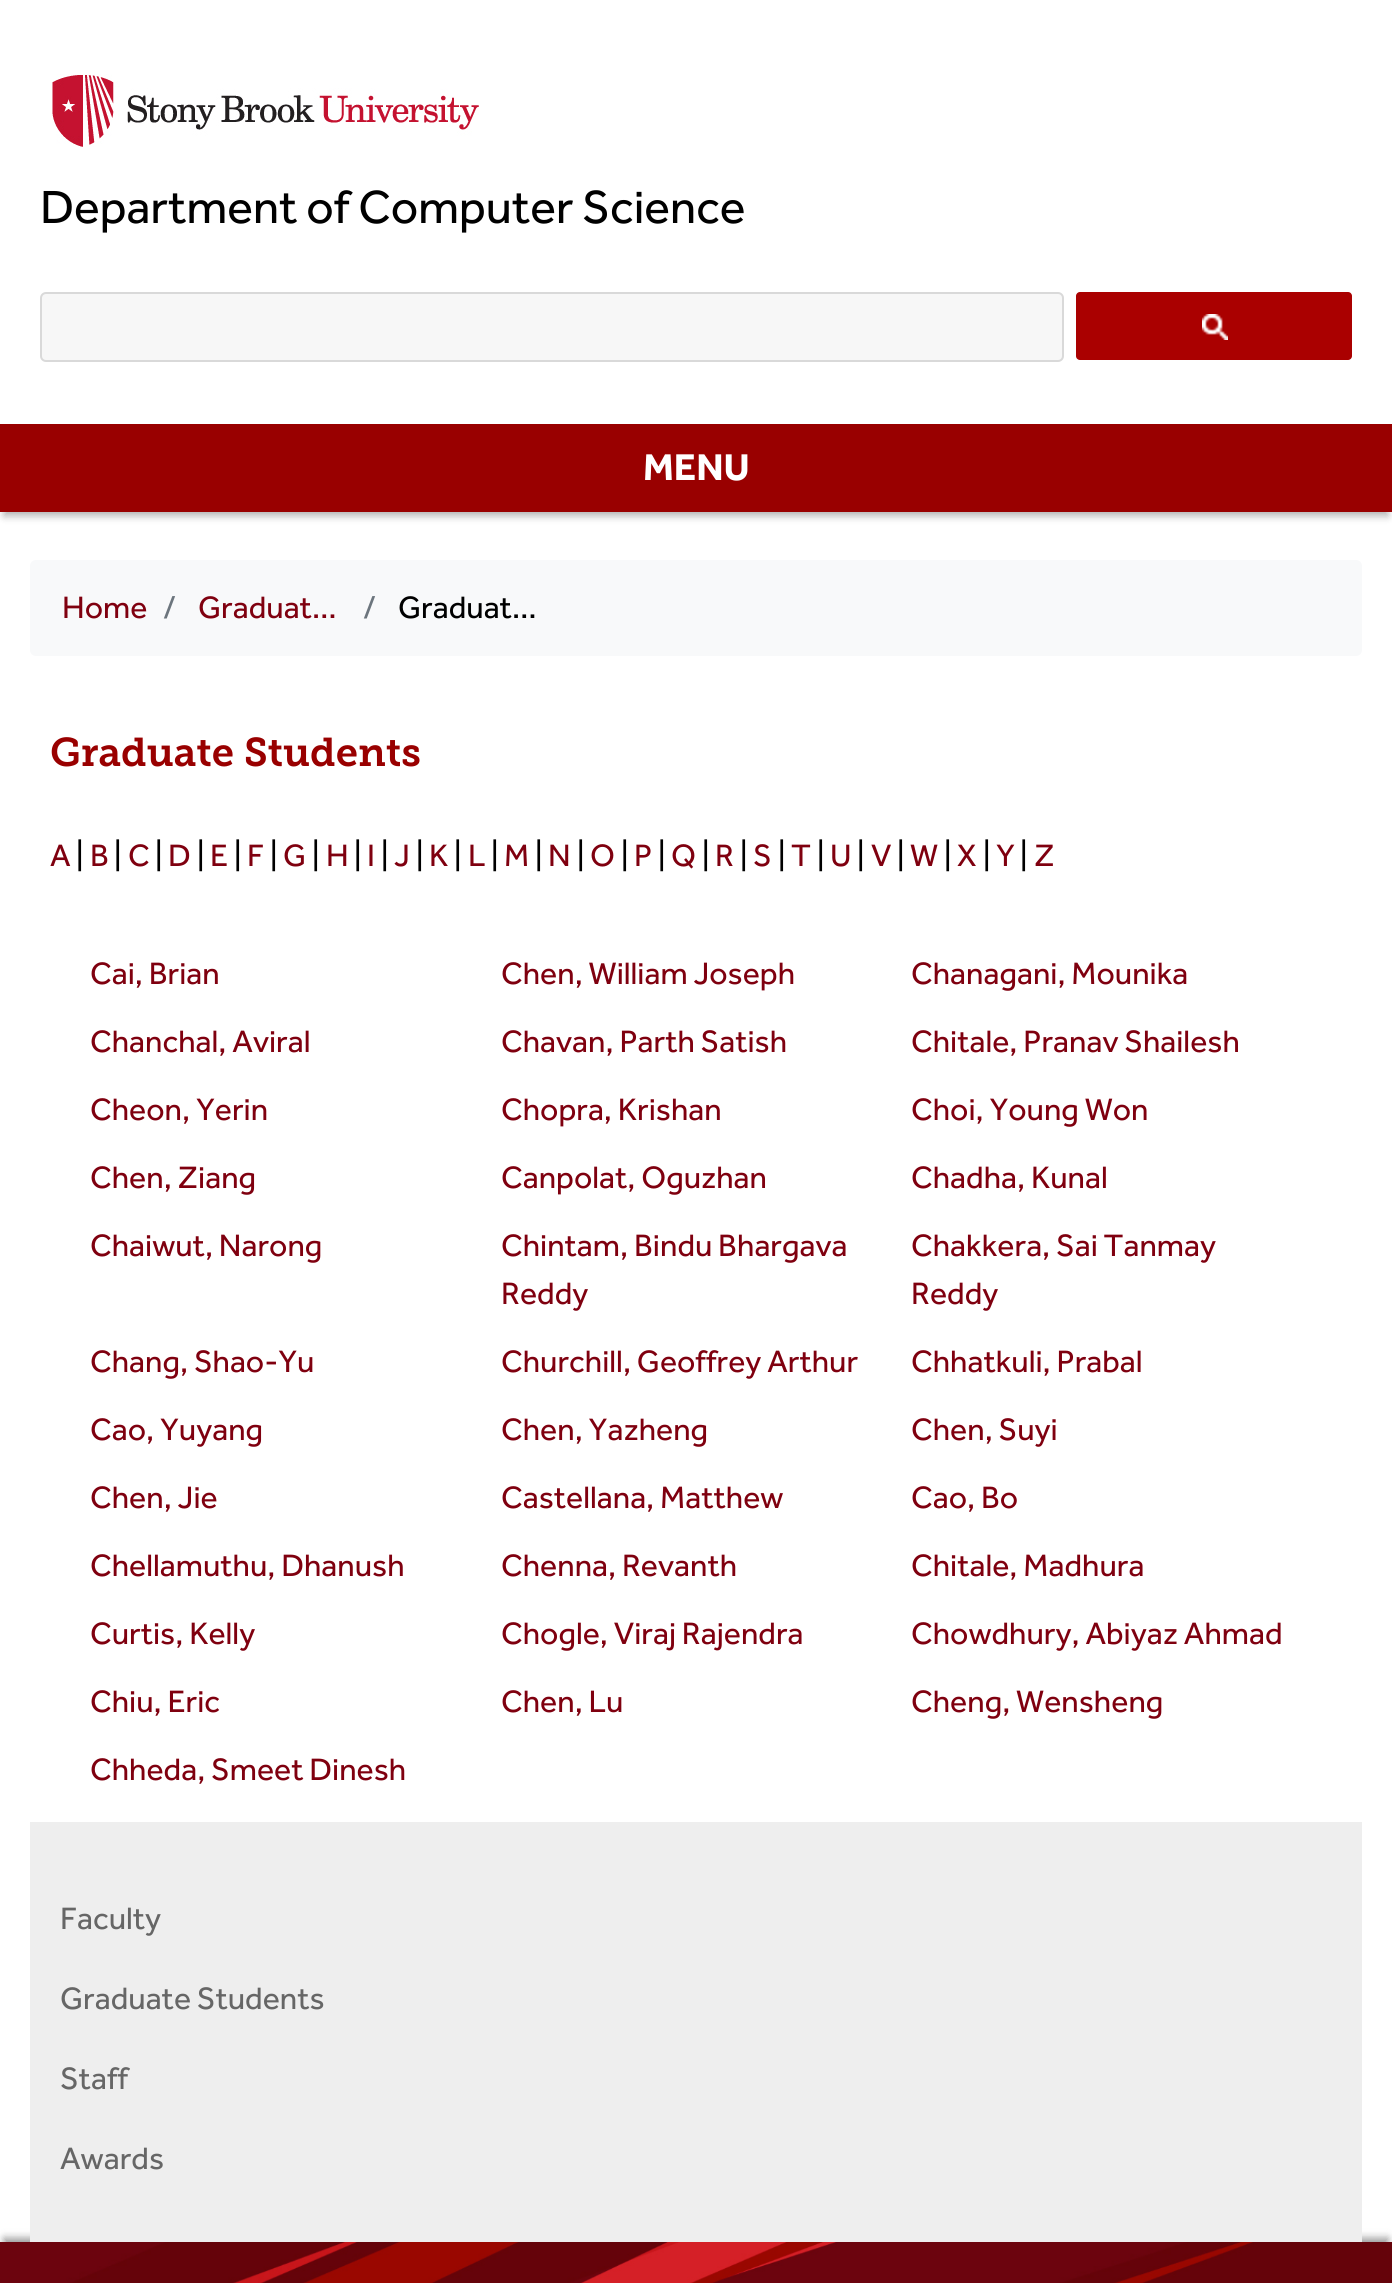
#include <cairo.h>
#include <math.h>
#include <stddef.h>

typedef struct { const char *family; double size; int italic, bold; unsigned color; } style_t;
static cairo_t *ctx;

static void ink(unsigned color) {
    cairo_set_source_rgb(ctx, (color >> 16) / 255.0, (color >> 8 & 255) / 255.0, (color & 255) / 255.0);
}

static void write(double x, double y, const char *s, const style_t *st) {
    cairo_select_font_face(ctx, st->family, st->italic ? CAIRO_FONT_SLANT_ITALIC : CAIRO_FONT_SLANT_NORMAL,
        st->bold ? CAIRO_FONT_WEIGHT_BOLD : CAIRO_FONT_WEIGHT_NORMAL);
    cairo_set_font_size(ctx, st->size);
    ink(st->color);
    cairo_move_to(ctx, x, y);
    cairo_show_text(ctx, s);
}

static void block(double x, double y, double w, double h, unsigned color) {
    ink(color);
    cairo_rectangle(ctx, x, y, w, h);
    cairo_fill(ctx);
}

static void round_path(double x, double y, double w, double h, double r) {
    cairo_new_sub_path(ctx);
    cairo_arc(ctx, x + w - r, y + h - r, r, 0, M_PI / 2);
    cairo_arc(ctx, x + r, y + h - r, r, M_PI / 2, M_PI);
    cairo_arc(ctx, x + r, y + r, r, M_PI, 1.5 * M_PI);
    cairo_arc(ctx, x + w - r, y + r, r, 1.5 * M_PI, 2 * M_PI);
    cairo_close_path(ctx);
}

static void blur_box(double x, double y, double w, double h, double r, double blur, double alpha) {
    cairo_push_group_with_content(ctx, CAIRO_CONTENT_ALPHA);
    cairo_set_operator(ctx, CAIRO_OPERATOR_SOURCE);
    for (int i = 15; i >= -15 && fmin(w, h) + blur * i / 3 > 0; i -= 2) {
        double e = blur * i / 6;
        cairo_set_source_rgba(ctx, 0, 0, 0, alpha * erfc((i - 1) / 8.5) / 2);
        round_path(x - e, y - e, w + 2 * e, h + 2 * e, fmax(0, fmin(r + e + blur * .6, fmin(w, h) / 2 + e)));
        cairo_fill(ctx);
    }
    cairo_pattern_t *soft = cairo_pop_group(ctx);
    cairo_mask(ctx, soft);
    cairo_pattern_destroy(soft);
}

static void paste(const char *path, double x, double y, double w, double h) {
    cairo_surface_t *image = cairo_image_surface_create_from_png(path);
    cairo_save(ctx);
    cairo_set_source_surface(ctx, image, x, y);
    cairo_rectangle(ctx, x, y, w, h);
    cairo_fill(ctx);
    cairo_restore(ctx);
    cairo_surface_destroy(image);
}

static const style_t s1 = {"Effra", 48, 0, 0, 0x000000};
static const style_t s2 = {"Effra", 38.5, 0, 1, 0xffffff};
static const style_t s3 = {"Effra", 32, 0, 0, 0x7f000f};
static const style_t s4 = {"Effra", 32, 0, 0, 0x6c757d};
static const style_t s5 = {"Effra", 32, 0, 0, 0x000000};
static const style_t s6 = {"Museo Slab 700 SemiBold", 40, 0, 0, 0x990000};
static const style_t s7 = {"Effra", 32, 0, 0, 0x666666};

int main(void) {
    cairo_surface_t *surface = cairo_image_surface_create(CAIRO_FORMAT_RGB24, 1392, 2283);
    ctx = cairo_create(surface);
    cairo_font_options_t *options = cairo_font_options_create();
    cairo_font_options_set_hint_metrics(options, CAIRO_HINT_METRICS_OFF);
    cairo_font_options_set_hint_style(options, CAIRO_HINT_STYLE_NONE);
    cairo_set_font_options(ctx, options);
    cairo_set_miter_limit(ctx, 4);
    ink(0xffffff);
    cairo_paint(ctx);
    paste("pic1.png", 52, 74, 427, 73);
    write(40, 223, "Department of Computer Science", &s1);
    ink(0xf7f7f7);
    round_path(41, 293, 1022, 68, 5);
    cairo_fill_preserve(ctx);
    ink(0xd9d9d9);
    cairo_stroke(ctx);
    ink(0xaa0000);
    round_path(1076, 292, 276, 68, 4);
    cairo_fill(ctx);
    paste("pic2.png", 1202, 314, 26, 26);
    ink(0x000000);
    blur_box(4, 436, 1384, 80, 0, 4, 0.3);
    block(0, 424, 1392, 88, 0x990000);
    write(643, 480, "MENU", &s2);
    ink(0xf8f9fa);
    round_path(30, 560, 1332, 96, 6);
    cairo_fill(ctx);
    write(62, 618, "Home", &s3);
    write(163, 618, "/", &s4);
    write(198, 618, "Graduat…", &s3);
    write(363, 618, "/", &s4);
    write(398, 618, "Graduat…", &s5);
    write(50, 766, "Graduate Students", &s6);
    write(50, 866, "A", &s3);
    write(76, 866, "|", &s5);
    write(90, 866, "B", &s3);
    write(114, 866, "|", &s5);
    write(128, 866, "C", &s3);
    write(155, 866, "|", &s5);
    write(168, 866, "D", &s3);
    write(197, 866, "|", &s5);
    write(210, 866, "E", &s3);
    write(234, 866, "|", &s5);
    write(247, 866, "F", &s3);
    write(270, 866, "|", &s5);
    write(283, 866, "G", &s3);
    write(312, 866, "|", &s5);
    write(326, 866, "H", &s3);
    write(354, 866, "|", &s5);
    write(367, 866, "I", &s3);
    write(381, 866, "|", &s5);
    write(394, 866, "J", &s3);
    write(416, 866, "|", &s5);
    write(429, 866, "K", &s3);
    write(454, 866, "|", &s5);
    write(468, 866, "L", &s3);
    write(491, 866, "|", &s5);
    write(504, 866, "M", &s3);
    write(535, 866, "|", &s5);
    write(548, 866, "N", &s3);
    write(577, 866, "|", &s5);
    write(590, 866, "O", &s3);
    write(621, 866, "|", &s5);
    write(634, 866, "P", &s3);
    write(658, 866, "|", &s5);
    write(671, 866, "Q", &s3);
    write(702, 866, "|", &s5);
    write(715, 866, "R", &s3);
    write(740, 866, "|", &s5);
    write(753, 866, "S", &s3);
    write(778, 866, "|", &s5);
    write(791, 866, "T", &s3);
    write(817, 866, "|", &s5);
    write(830, 866, "U", &s3);
    write(857, 866, "|", &s5);
    write(871, 866, "V", &s3);
    write(897, 866, "|", &s5);
    write(910, 866, "W", &s3);
    write(944, 866, "|", &s5);
    write(957, 866, "X", &s3);
    write(983, 866, "|", &s5);
    write(996, 866, "Y", &s3);
    write(1020, 866, "|", &s5);
    write(1034, 866, "Z", &s3);
    write(90, 984, "Cai, Brian", &s3);
    write(501, 984, "Chen, William Joseph", &s3);
    write(911, 984, "Chanagani, Mounika", &s3);
    write(90, 1052, "Chanchal, Aviral", &s3);
    write(501, 1052, "Chavan, Parth Satish", &s3);
    write(911, 1052, "Chitale, Pranav Shailesh", &s3);
    write(90, 1120, "Cheon, Yerin", &s3);
    write(501, 1120, "Chopra, Krishan", &s3);
    write(911, 1120, "Choi, Young Won", &s3);
    write(90, 1188, "Chen, Ziang", &s3);
    write(501, 1188, "Canpolat, Oguzhan", &s3);
    write(911, 1188, "Chadha, Kunal", &s3);
    write(90, 1256, "Chaiwut, Narong", &s3);
    write(501, 1256, "Chintam, Bindu Bhargava", &s3);
    write(501, 1304, "Reddy", &s3);
    write(911, 1256, "Chakkera, Sai Tanmay", &s3);
    write(911, 1304, "Reddy", &s3);
    write(90, 1372, "Chang, Shao-Yu", &s3);
    write(501, 1372, "Churchill, Geoffrey Arthur", &s3);
    write(911, 1372, "Chhatkuli, Prabal", &s3);
    write(90, 1440, "Cao, Yuyang", &s3);
    write(501, 1440, "Chen, Yazheng", &s3);
    write(911, 1440, "Chen, Suyi", &s3);
    write(90, 1508, "Chen, Jie", &s3);
    write(501, 1508, "Castellana, Matthew", &s3);
    write(911, 1508, "Cao, Bo", &s3);
    write(90, 1576, "Chellamuthu, Dhanush", &s3);
    write(501, 1576, "Chenna, Revanth", &s3);
    write(911, 1576, "Chitale, Madhura", &s3);
    write(90, 1644, "Curtis, Kelly", &s3);
    write(501, 1644, "Chogle, Viraj Rajendra", &s3);
    write(911, 1644, "Chowdhury, Abiyaz Ahmad", &s3);
    write(90, 1712, "Chiu, Eric", &s3);
    write(501, 1712, "Chen, Lu", &s3);
    write(911, 1712, "Cheng, Wensheng", &s3);
    write(90, 1780, "Chheda, Smeet Dinesh", &s3);
    ink(0x000000);
    blur_box(4, 2238, 1384, 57, 0, 4, 0.4);
    block(30, 1822, 1332, 420, 0xeeeeee);
    write(60, 1929, "Faculty", &s7);
    write(60, 2009, "Graduate Students", &s7);
    write(60, 2089, "Staff", &s7);
    write(60, 2169, "Awards", &s7);
    paste("pic3.png", 0, 2242, 1392, 41);
    cairo_surface_write_to_png(surface, "screenshot.png");
    cairo_font_options_destroy(options);
    cairo_destroy(ctx);
    cairo_surface_destroy(surface);
    return 0;
}
